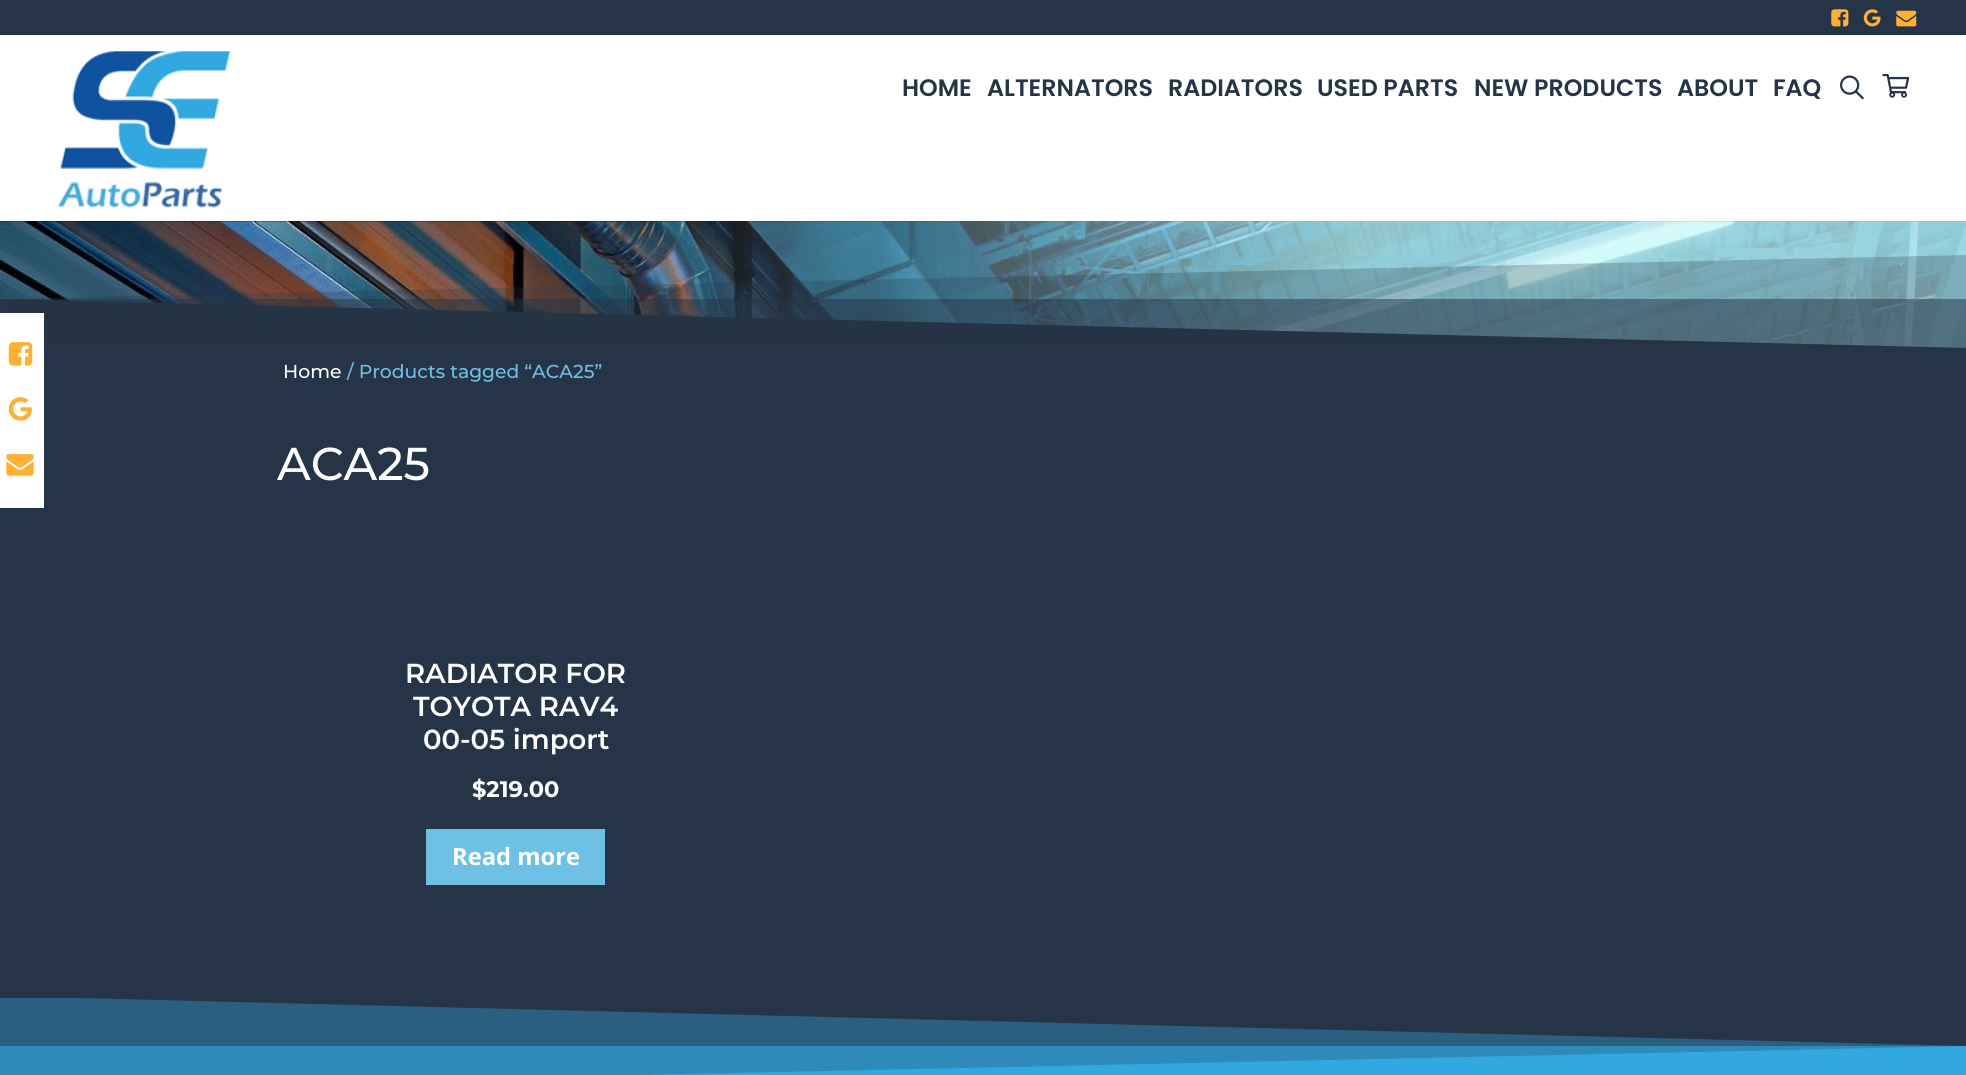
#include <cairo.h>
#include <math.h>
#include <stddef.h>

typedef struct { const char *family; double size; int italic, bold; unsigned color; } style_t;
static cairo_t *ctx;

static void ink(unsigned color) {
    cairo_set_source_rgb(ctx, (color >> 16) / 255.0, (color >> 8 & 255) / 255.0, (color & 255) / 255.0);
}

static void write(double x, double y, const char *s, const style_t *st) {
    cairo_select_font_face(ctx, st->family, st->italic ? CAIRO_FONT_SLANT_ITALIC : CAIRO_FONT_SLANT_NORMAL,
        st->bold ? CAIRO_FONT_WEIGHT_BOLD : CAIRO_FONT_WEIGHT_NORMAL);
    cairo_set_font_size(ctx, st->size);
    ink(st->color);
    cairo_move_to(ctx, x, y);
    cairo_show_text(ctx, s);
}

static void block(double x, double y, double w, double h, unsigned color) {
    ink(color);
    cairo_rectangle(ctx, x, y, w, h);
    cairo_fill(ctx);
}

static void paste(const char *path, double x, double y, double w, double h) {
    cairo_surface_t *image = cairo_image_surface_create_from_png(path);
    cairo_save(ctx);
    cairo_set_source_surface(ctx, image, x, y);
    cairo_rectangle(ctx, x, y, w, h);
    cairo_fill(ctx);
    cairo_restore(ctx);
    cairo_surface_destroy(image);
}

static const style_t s1 = {"Poppins SemiBold", 23.75, 0, 0, 0x263447};
static const style_t s2 = {"Montserrat Medium", 18.75, 0, 0, 0xffffff};
static const style_t s3 = {"Montserrat Medium", 18.75, 0, 0, 0x6ec1e4};
static const style_t s4 = {"Montserrat Medium", 46, 0, 0, 0xffffff};
static const style_t s5 = {"Montserrat SemiBold", 27.5, 0, 0, 0xffffff};
static const style_t s6 = {"Montserrat", 22.5, 0, 1, 0xffffff};
static const style_t s7 = {"Open Sans", 23.75, 0, 1, 0xffffff};

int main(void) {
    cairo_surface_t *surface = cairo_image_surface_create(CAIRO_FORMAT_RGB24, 1966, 1075);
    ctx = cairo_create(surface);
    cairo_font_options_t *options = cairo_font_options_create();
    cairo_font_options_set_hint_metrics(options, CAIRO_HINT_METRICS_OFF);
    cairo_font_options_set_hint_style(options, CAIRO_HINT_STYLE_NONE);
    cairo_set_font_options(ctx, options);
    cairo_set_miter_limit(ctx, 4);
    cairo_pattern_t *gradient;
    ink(0x263447);
    cairo_paint(ctx);
    paste("pic1.png", 1831, 9, 18, 18);
    paste("pic2.png", 1863, 9, 18, 18);
    paste("pic3.png", 1896, 10, 21, 17);
    block(0, 35, 1966, 186, 0xffffff);
    paste("pic4.png", 57, 51, 174, 157);
    write(902, 96, "HOME", &s1);
    write(987, 96, "ALTERNATORS", &s1);
    write(1168, 96, "RADIATORS", &s1);
    write(1317, 96, "USED PARTS", &s1);
    write(1474, 96, "NEW PRODUCTS", &s1);
    write(1677, 96, "ABOUT", &s1);
    write(1773, 96, "FAQ", &s1);
    paste("pic5.png", 1840, 75, 24, 25);
    paste("pic6.png", 1882, 74, 28, 24);
    block(0, 221, 1966, 127, 0x000000);
    paste("pic10.png", 0, 221, 1966, 127);
    gradient = cairo_pattern_create_linear(1966, 284, 0, 284);
    cairo_pattern_add_color_stop_rgba(gradient, 0.31, 0.769, 0.976, 0.973, 0.72);
    cairo_pattern_add_color_stop_rgba(gradient, 0.69, 0.769, 0.976, 0.973, 0);
    cairo_set_source(ctx, gradient);
    cairo_pattern_destroy(gradient);
    cairo_rectangle(ctx, 632, 221, 1334, 127);
    cairo_fill(ctx);
    ink(0x263447);
    cairo_new_path(ctx);
    cairo_move_to(ctx, 1966, 348);
    cairo_line_to(ctx, -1, 348);
    cairo_line_to(ctx, -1, 299);
    cairo_close_path(ctx);
    cairo_fill(ctx);
    cairo_set_source_rgba(ctx, 0.149, 0.204, 0.278, 0.5);
    cairo_rectangle(ctx, 8, 299, 1958, 49);
    cairo_fill(ctx);
    cairo_set_source_rgba(ctx, 0.149, 0.204, 0.278, 0.25);
    cairo_new_path(ctx);
    cairo_move_to(ctx, -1, 348);
    cairo_line_to(ctx, 1966, 348);
    cairo_line_to(ctx, 1966, 255);
    cairo_line_to(ctx, -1, 299);
    cairo_close_path(ctx);
    cairo_fill(ctx);
    block(0, 313, 44, 195, 0xffffff);
    paste("pic7.png", 8, 342, 25, 24);
    paste("pic8.png", 8, 397, 24, 24);
    paste("pic9.png", 6, 454, 28, 22);
    write(283, 378, "Home", &s2);
    write(347, 378, "/ Products tagged “ACA25”", &s3);
    write(277, 480, "ACA25", &s4);
    write(405, 683, "RADIATOR FOR", &s5);
    write(413, 716, "TOYOTA RAV4", &s5);
    write(423, 749, "00-05 import", &s5);
    write(472, 797, "$219.00", &s6);
    block(426, 829, 179, 56, 0x6ec1e4);
    write(452, 865, "Read more", &s7);
    block(0, 1046, 1966, 29, 0x31a8e0);
    block(0, 998, 1966, 48, 0x2c6e94);
    ink(0x263447);
    cairo_new_path(ctx);
    cairo_move_to(ctx, 0, 996);
    cairo_line_to(ctx, 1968, 996);
    cairo_line_to(ctx, 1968, 1046);
    cairo_close_path(ctx);
    cairo_fill(ctx);
    cairo_set_source_rgba(ctx, 0.149, 0.204, 0.278, 0.25);
    cairo_new_path(ctx);
    cairo_move_to(ctx, 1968, 996);
    cairo_line_to(ctx, 0, 996);
    cairo_line_to(ctx, 0, 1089);
    cairo_line_to(ctx, 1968, 1046);
    cairo_close_path(ctx);
    cairo_fill(ctx);
    cairo_surface_write_to_png(surface, "screenshot.png");
    cairo_font_options_destroy(options);
    cairo_destroy(ctx);
    cairo_surface_destroy(surface);
    return 0;
}
